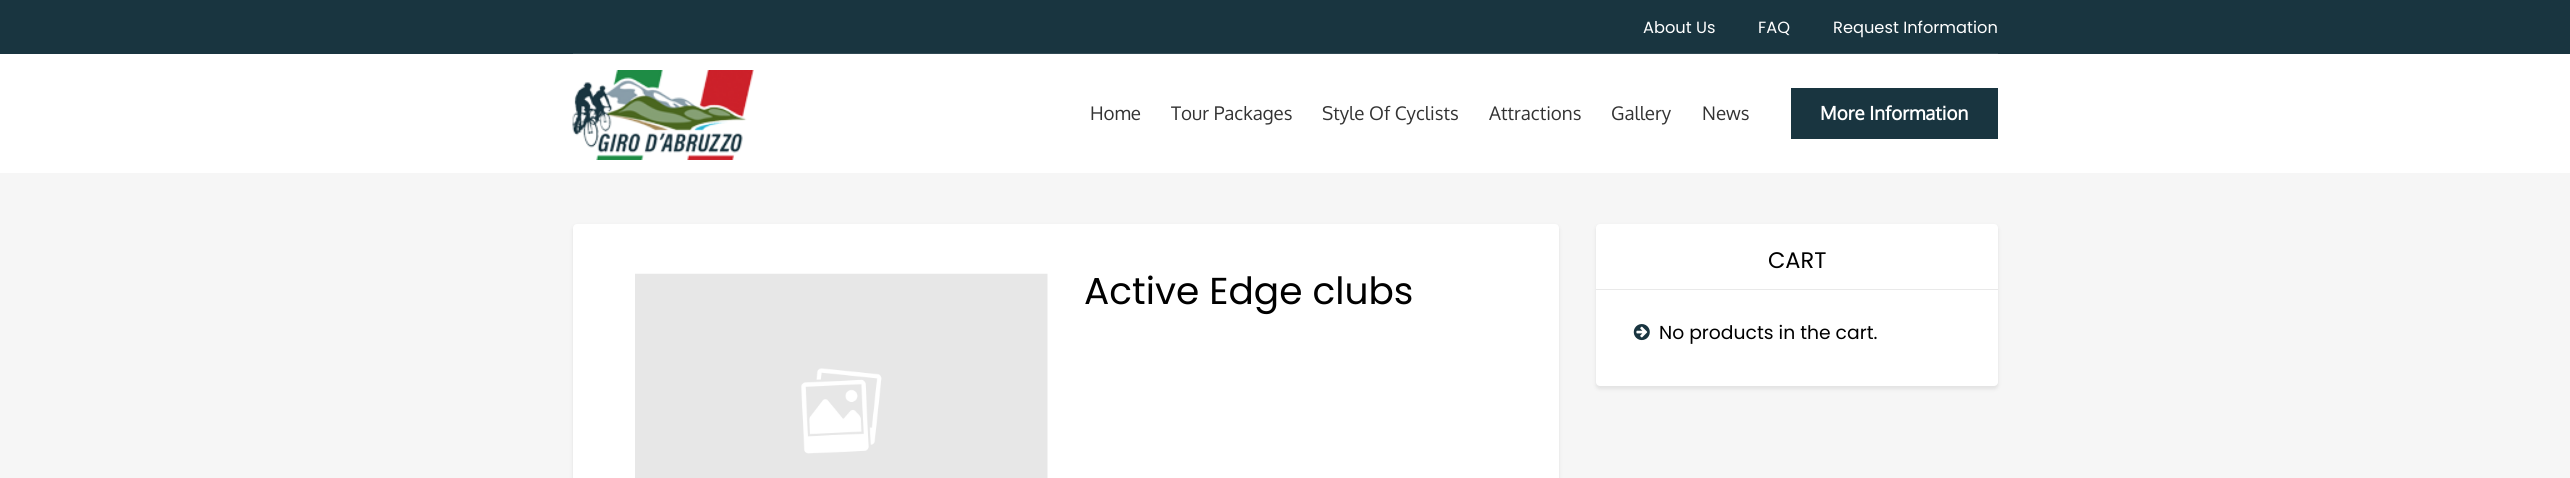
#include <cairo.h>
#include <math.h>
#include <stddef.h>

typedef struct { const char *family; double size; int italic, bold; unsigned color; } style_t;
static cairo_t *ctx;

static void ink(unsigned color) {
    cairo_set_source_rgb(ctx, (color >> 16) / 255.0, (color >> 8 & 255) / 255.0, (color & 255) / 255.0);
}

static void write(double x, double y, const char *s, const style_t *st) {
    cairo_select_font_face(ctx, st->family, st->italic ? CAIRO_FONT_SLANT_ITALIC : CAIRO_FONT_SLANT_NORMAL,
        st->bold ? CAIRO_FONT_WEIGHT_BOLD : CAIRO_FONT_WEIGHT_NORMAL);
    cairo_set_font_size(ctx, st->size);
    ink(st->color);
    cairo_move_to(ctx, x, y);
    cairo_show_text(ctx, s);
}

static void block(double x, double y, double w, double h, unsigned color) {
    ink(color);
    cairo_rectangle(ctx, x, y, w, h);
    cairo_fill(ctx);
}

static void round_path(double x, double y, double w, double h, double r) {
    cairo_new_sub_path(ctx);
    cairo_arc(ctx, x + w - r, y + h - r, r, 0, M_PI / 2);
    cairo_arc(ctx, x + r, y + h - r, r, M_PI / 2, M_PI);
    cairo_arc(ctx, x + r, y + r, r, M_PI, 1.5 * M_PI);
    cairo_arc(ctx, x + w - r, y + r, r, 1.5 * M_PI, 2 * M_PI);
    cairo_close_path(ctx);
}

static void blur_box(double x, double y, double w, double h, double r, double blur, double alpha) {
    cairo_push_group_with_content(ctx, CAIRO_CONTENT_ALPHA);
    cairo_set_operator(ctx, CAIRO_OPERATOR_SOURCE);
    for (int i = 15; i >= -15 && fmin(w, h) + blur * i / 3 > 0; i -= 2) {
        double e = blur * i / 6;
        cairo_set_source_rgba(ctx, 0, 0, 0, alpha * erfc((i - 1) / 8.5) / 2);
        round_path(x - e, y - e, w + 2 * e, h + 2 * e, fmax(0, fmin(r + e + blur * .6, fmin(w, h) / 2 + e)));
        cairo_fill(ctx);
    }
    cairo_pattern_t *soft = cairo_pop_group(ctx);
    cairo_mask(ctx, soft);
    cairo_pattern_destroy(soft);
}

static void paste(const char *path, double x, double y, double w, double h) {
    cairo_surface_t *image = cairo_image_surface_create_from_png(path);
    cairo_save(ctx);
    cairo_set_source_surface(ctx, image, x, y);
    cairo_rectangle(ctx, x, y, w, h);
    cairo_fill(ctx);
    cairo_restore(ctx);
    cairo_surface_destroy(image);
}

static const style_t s1 = {"Poppins", 16.25, 0, 0, 0xffffff};
static const style_t s2 = {"Oxygen", 18.75, 0, 0, 0x333333};
static const style_t s3 = {"Oxygen", 18.75, 0, 1, 0xffffff};
static const style_t s4 = {"Poppins", 37.5, 0, 0, 0x000000};
static const style_t s5 = {"Poppins", 22.5, 0, 0, 0x000000};
static const style_t s6 = {"Poppins", 18.75, 0, 0, 0x000000};

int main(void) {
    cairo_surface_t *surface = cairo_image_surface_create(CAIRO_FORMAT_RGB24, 2570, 478);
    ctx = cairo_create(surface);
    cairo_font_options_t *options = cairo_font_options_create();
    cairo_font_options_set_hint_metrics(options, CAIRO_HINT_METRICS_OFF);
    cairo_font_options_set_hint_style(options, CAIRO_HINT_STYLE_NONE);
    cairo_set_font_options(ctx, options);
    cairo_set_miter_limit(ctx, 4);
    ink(0xf6f6f6);
    cairo_paint(ctx);
    block(0, 0, 2570, 54, 0x193540);
    write(1643, 33, "About Us", &s1);
    write(1758, 33, "FAQ", &s1);
    write(1833, 33, "Request Information", &s1);
    block(573, 53, 1425, 1, 0x304953);
    block(0, 54, 2570, 119, 0xffffff);
    paste("pic1.png", 572, 70, 182, 90);
    write(1090, 120, "Home", &s2);
    write(1171, 120, "Tour Packages", &s2);
    write(1322, 120, "Style Of Cyclists", &s2);
    write(1489, 120, "Attractions", &s2);
    write(1611, 120, "Gallery", &s2);
    write(1702, 120, "News", &s2);
    block(1791, 88, 207, 51, 0x193540);
    write(1820, 120, "More Information", &s3);
    ink(0x000000);
    blur_box(573, 226, 986, 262, 4, 2, 0.09);
    ink(0xffffff);
    round_path(573, 224, 986, 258, 4);
    cairo_fill(ctx);
    paste("pic2.png", 635, 273, 413, 205);
    write(1084, 304, "Active Edge clubs", &s4);
    ink(0x000000);
    blur_box(1596, 226, 402, 163, 4, 2, 0.09);
    ink(0xffffff);
    round_path(1596, 224, 402, 162, 4);
    cairo_fill(ctx);
    block(1596, 289, 402, 1, 0xe9e9e9);
    write(1768, 268, "CART", &s5);
    paste("pic3.png", 1633, 324, 17, 17);
    write(1659, 339, "No products in the cart.", &s6);
    cairo_surface_write_to_png(surface, "screenshot.png");
    cairo_font_options_destroy(options);
    cairo_destroy(ctx);
    cairo_surface_destroy(surface);
    return 0;
}
